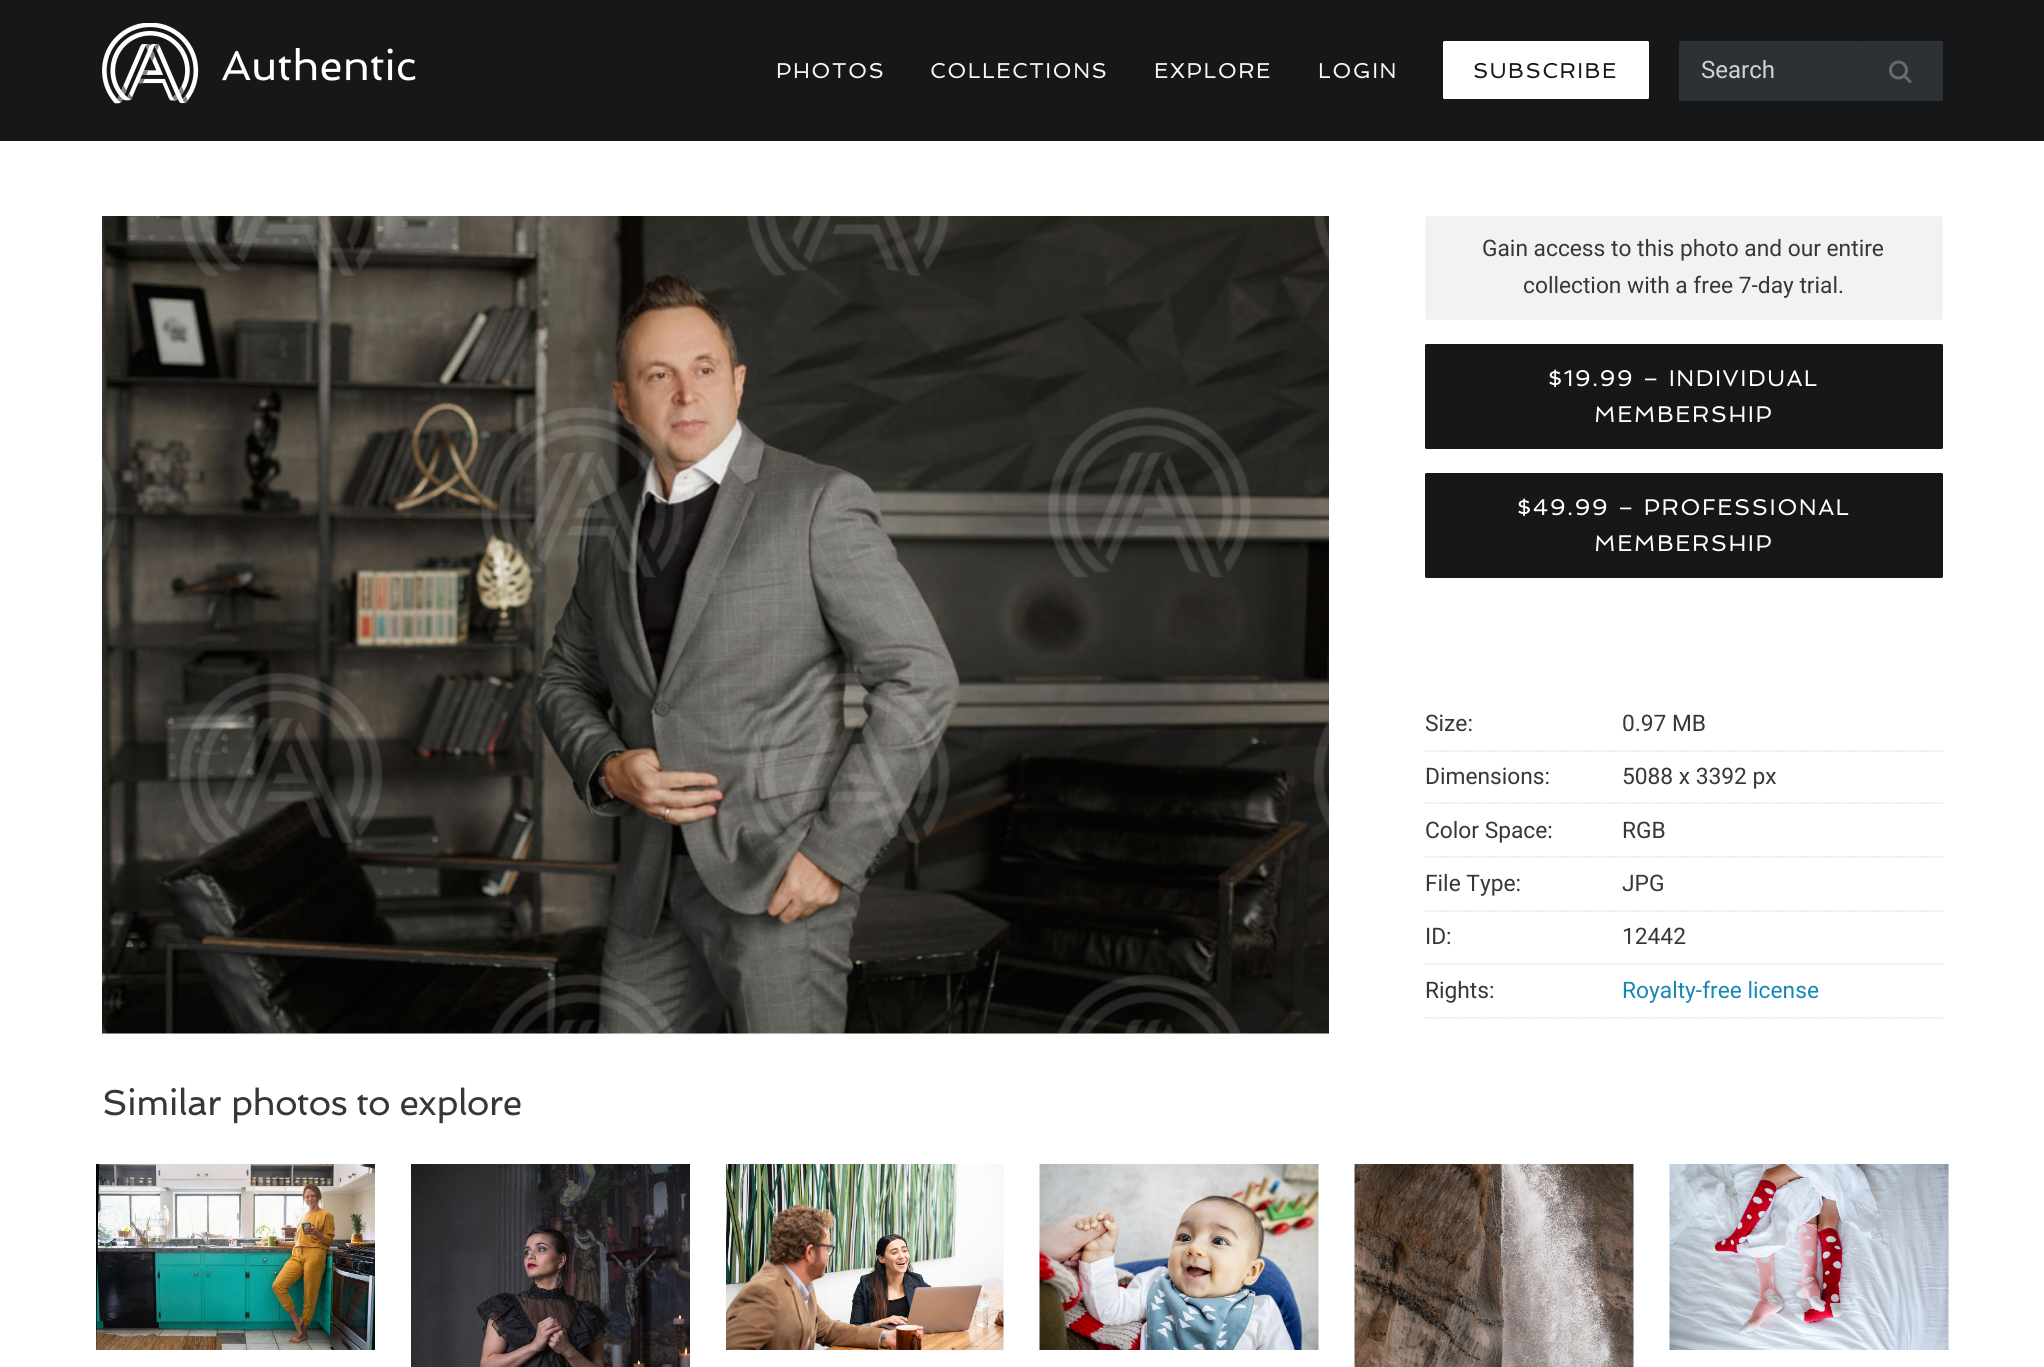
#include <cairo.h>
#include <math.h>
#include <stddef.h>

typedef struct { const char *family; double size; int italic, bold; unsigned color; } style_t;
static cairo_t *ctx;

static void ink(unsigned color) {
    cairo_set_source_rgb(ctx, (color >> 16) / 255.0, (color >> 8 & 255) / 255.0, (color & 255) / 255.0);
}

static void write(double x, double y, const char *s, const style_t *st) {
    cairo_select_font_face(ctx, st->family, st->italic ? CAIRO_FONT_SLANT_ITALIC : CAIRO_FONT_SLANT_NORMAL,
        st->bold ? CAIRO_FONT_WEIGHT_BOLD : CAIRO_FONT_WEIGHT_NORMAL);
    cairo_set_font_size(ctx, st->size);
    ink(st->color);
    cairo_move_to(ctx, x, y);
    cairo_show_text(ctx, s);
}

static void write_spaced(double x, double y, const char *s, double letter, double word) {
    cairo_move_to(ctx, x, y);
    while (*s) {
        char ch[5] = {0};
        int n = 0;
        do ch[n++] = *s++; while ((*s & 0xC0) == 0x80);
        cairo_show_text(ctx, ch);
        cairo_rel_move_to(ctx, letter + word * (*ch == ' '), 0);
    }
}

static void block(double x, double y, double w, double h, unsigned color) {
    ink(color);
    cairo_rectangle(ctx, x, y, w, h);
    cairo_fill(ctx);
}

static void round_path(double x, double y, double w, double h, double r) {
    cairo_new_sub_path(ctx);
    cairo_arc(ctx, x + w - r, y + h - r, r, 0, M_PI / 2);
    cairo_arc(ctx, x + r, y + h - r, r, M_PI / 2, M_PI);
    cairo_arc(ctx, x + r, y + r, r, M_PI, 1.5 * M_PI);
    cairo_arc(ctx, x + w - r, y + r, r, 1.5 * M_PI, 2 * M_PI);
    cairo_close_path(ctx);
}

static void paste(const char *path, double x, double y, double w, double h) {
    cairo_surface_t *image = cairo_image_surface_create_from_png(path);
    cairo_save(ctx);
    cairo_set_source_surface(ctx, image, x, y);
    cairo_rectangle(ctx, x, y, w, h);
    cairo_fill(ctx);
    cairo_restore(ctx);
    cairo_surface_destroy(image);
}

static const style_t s1 = {"Roboto", 24, 0, 0, 0xcdd5da};
static const style_t s2 = {"Roboto", 22.75, 0, 0, 0x373737};
static const style_t s3 = {"Roboto", 22.75, 0, 0, 0x1987b3};

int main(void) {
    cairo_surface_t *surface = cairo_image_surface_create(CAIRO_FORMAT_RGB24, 2044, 1367);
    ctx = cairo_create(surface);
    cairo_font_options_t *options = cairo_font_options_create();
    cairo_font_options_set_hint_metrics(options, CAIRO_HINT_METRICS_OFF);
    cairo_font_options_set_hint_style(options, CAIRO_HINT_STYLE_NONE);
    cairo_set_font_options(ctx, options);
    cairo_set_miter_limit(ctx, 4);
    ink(0xffffff);
    cairo_paint(ctx);
    block(0, 0, 2044, 141, 0x161718);
    paste("pic1.png", 102, 23, 314, 81);
    cairo_select_font_face(ctx, "Spinnaker", CAIRO_FONT_SLANT_NORMAL, CAIRO_FONT_WEIGHT_NORMAL);
    cairo_set_font_size(ctx, 21.5);
    ink(0xf8f6f3);
    write_spaced(776, 78, "PHOTOS", 1.5, 0);
    write_spaced(930, 78, "COLLECTIONS", 1.5, 0);
    write_spaced(1154, 78, "EXPLORE", 1.5, 0);
    write_spaced(1318, 78, "LOGIN", 1.5, 0);
    ink(0xffffff);
    round_path(1443, 41, 206, 58, 1.5);
    cairo_fill(ctx);
    ink(0x161718);
    write_spaced(1473, 78, "SUBSCRIBE", 1.5, 0);
    ink(0x2e3133);
    cairo_new_path(ctx);
    cairo_move_to(ctx, 1680.5, 41);
    cairo_line_to(ctx, 1859, 41);
    cairo_line_to(ctx, 1859, 101);
    cairo_line_to(ctx, 1680.5, 101);
    cairo_curve_to(ctx, 1679.5, 101, 1679, 100.5, 1679, 99.5);
    cairo_line_to(ctx, 1679, 42.5);
    cairo_curve_to(ctx, 1679, 41.5, 1679.5, 41, 1680.5, 41);
    cairo_close_path(ctx);
    cairo_fill(ctx);
    write(1701, 78, "Search", &s1);
    ink(0x2e3133);
    round_path(1859, 41, 84, 60, 1.5);
    cairo_fill(ctx);
    cairo_arc(ctx, 1898.5, 70, 8, 0, 2 * M_PI);
    ink(0x696969);
    cairo_set_line_width(ctx, 3);
    cairo_stroke(ctx);
    cairo_new_path(ctx);
    cairo_move_to(ctx, 1904, 75.5);
    cairo_line_to(ctx, 1910, 81.5);
    cairo_set_line_cap(ctx, CAIRO_LINE_CAP_ROUND);
    cairo_set_line_join(ctx, CAIRO_LINE_JOIN_ROUND);
    cairo_stroke(ctx);
    paste("pic2.png", 102, 216, 1227, 818);
    paste("pic3.png", 102, 216, 1227, 818);
    ink(0xf2f2f2);
    round_path(1425, 216, 518, 104, 3);
    cairo_fill(ctx);
    write(1482, 256, "Gain access to this photo and our entire", &s2);
    write(1523, 293, "collection with a free 7-day trial.", &s2);
    ink(0x161718);
    round_path(1425, 344, 518, 105, 1.5);
    cairo_fill(ctx);
    cairo_select_font_face(ctx, "Spinnaker", CAIRO_FONT_SLANT_NORMAL, CAIRO_FONT_WEIGHT_NORMAL);
    ink(0xffffff);
    write_spaced(1548, 386, "$19.99 – INDIVIDUAL", 1.5, 0);
    write_spaced(1594, 422, "MEMBERSHIP", 1.5, 0);
    ink(0x161718);
    round_path(1425, 473, 518, 105, 1.5);
    cairo_fill(ctx);
    ink(0xffffff);
    write_spaced(1517, 515, "$49.99 – PROFESSIONAL", 1.5, 0);
    write_spaced(1594, 551, "MEMBERSHIP", 1.5, 0);
    cairo_new_path(ctx);
    cairo_move_to(ctx, 1425, 751);
    cairo_line_to(ctx, 1942.5, 751);
    ink(0xdedede);
    cairo_set_line_width(ctx, 1.5);
    cairo_set_line_cap(ctx, CAIRO_LINE_CAP_BUTT);
    cairo_set_line_join(ctx, CAIRO_LINE_JOIN_MITER);
    cairo_set_dash(ctx, (double[]){1.5, 1.5}, 2, 0);
    cairo_stroke(ctx);
    write(1425, 731, "Size:", &s2);
    write(1622, 731, "0.97 MB", &s2);
    cairo_new_path(ctx);
    cairo_move_to(ctx, 1425, 803);
    cairo_line_to(ctx, 1942.5, 803);
    ink(0xdedede);
    cairo_stroke(ctx);
    write(1425, 784, "Dimensions:", &s2);
    write(1622, 784, "5088 x 3392 px", &s2);
    cairo_new_path(ctx);
    cairo_move_to(ctx, 1425, 857);
    cairo_line_to(ctx, 1942.5, 857);
    ink(0xdedede);
    cairo_stroke(ctx);
    write(1425, 838, "Color Space:", &s2);
    write(1622, 838, "RGB", &s2);
    cairo_new_path(ctx);
    cairo_move_to(ctx, 1425, 911);
    cairo_line_to(ctx, 1942.5, 911);
    ink(0xdedede);
    cairo_stroke(ctx);
    write(1425, 891, "File Type:", &s2);
    write(1622, 891, "JPG", &s2);
    cairo_new_path(ctx);
    cairo_move_to(ctx, 1425, 964);
    cairo_line_to(ctx, 1942.5, 964);
    ink(0xdedede);
    cairo_stroke(ctx);
    write(1425, 944, "ID:", &s2);
    write(1622, 944, "12442", &s2);
    cairo_new_path(ctx);
    cairo_move_to(ctx, 1425, 1018);
    cairo_line_to(ctx, 1942.5, 1018);
    ink(0xdedede);
    cairo_stroke(ctx);
    write(1425, 998, "Rights:", &s2);
    write(1622, 998, "Royalty-free license", &s3);
    cairo_select_font_face(ctx, "Spinnaker", CAIRO_FONT_SLANT_NORMAL, CAIRO_FONT_WEIGHT_NORMAL);
    cairo_set_font_size(ctx, 36);
    ink(0x373737);
    write_spaced(102, 1115, "Similar photos to explore", -0.75, 0);
    paste("pic4.png", 96, 1164, 279, 186);
    paste("pic5.png", 411, 1164, 279, 203);
    paste("pic6.png", 726, 1164, 278, 186);
    paste("pic7.png", 1039, 1164, 280, 186);
    paste("pic8.png", 1354, 1164, 280, 203);
    paste("pic9.png", 1669, 1164, 280, 186);
    cairo_surface_write_to_png(surface, "screenshot.png");
    cairo_font_options_destroy(options);
    cairo_destroy(ctx);
    cairo_surface_destroy(surface);
    return 0;
}
